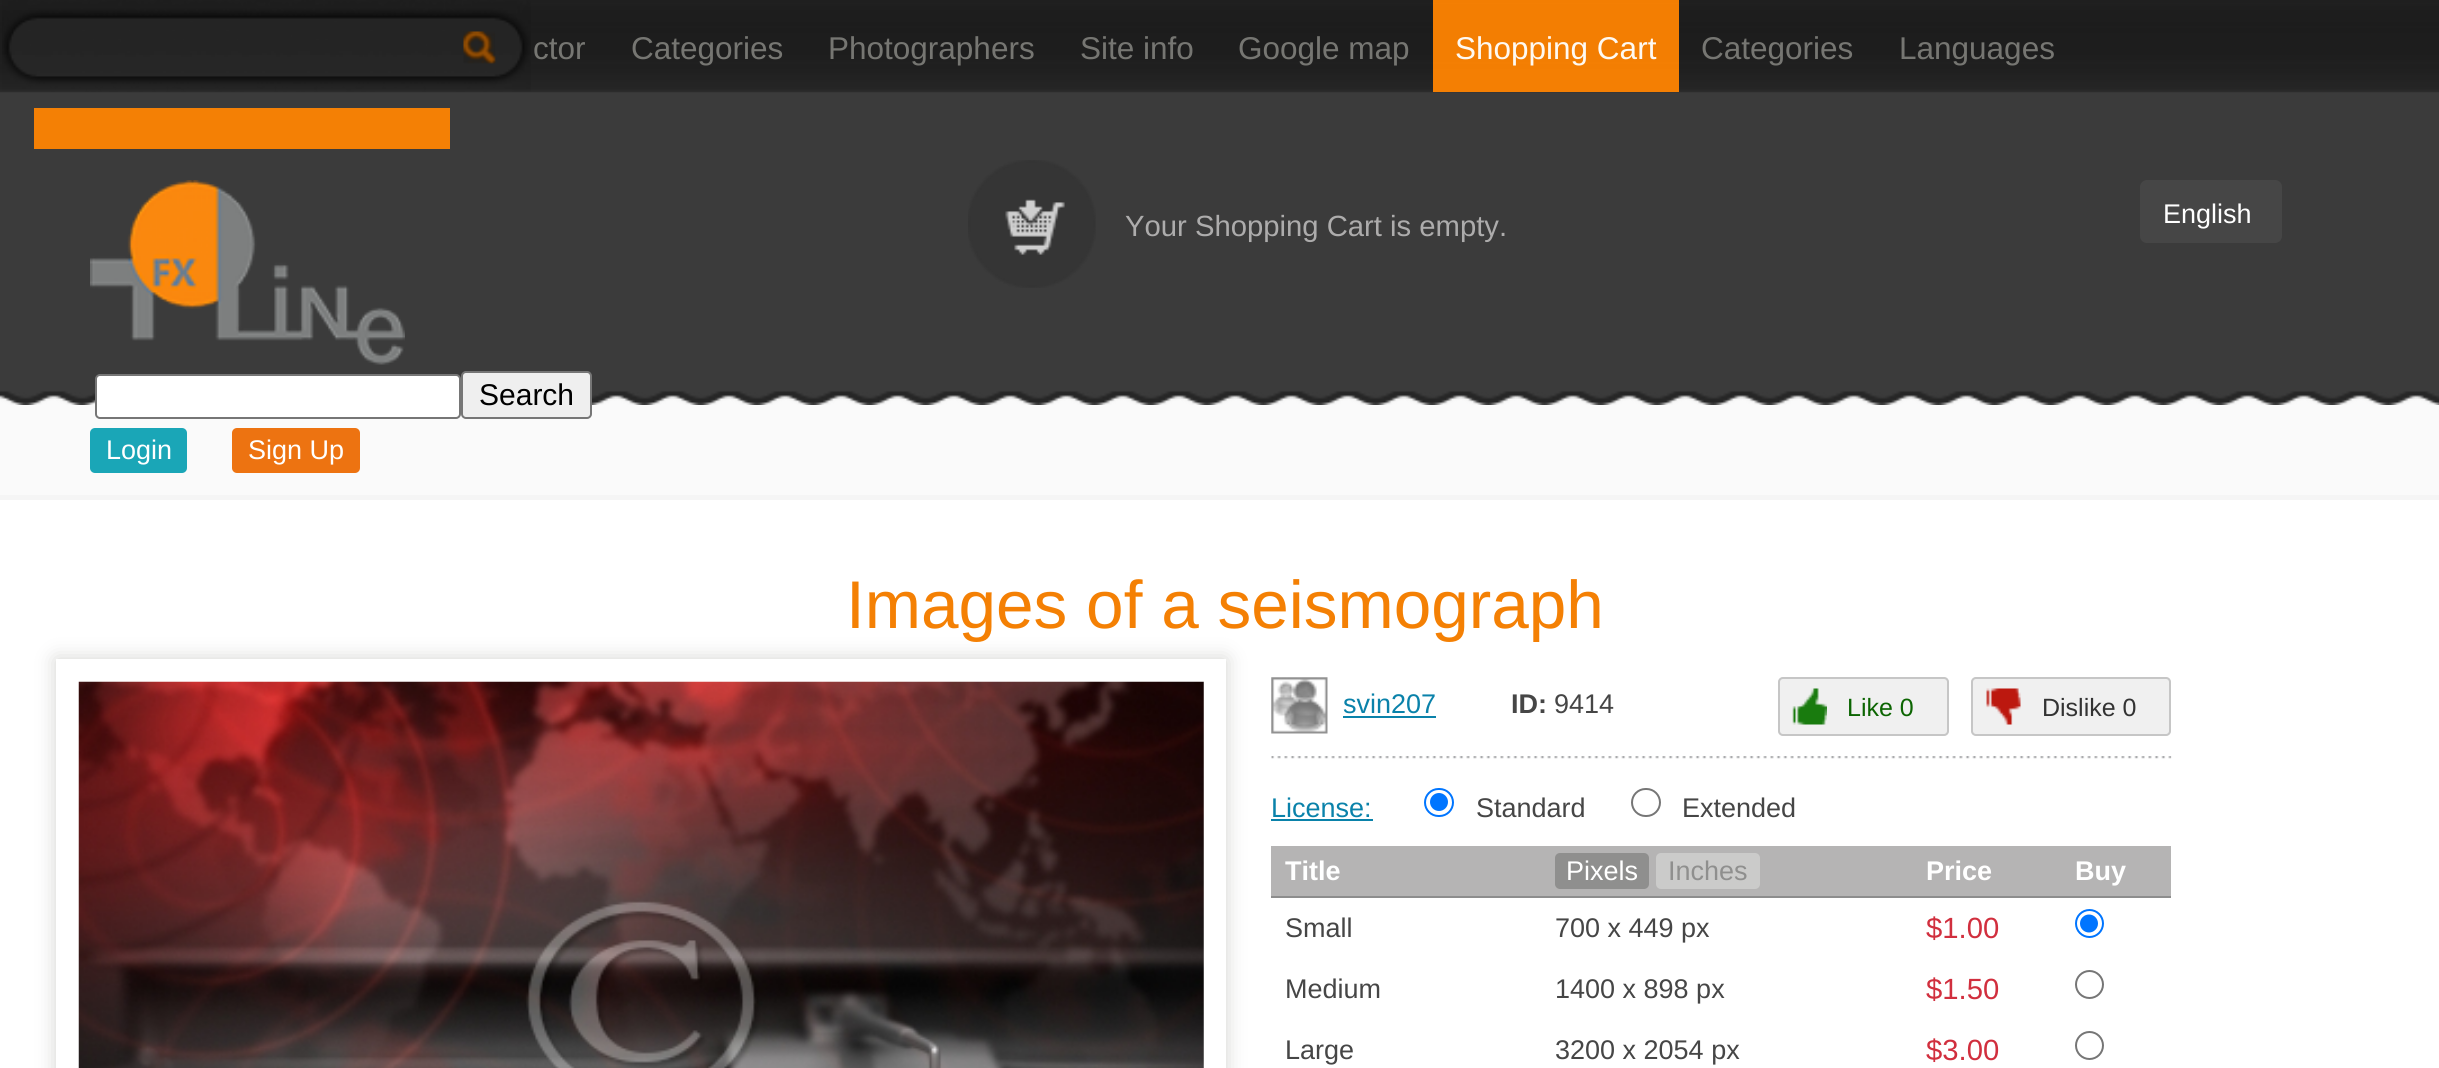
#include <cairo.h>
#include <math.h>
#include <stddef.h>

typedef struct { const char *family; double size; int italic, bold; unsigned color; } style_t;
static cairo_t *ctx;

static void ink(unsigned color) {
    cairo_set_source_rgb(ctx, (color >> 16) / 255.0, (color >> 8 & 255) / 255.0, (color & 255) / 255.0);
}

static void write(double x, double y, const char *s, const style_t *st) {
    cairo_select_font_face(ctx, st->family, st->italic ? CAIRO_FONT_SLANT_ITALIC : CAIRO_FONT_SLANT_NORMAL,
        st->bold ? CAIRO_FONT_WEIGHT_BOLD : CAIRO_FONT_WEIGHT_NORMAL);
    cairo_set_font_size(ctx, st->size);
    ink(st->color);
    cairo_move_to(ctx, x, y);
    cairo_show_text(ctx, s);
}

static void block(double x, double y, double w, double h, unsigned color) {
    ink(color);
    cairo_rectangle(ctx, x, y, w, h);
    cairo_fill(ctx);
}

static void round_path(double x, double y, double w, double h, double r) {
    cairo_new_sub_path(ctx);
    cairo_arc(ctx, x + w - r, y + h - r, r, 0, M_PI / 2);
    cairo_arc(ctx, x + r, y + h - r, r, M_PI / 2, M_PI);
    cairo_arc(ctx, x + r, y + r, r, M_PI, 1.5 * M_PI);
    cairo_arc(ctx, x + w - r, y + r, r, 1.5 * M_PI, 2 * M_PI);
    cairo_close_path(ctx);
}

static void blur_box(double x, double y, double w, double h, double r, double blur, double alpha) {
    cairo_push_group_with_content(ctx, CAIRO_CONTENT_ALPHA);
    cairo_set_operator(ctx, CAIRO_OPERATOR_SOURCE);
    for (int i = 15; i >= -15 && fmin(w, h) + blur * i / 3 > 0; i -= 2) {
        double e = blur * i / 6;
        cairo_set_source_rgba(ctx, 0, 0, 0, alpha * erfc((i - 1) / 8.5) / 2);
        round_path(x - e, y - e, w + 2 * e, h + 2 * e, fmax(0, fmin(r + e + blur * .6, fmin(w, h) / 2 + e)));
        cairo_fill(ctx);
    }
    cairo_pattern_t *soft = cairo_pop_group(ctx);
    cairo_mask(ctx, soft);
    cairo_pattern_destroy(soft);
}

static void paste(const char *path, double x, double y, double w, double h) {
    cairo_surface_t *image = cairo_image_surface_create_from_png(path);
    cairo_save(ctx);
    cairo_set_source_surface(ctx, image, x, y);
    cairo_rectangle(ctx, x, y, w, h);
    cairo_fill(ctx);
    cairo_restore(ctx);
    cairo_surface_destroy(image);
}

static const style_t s1 = {"Liberation Sans", 31.5, 0, 0, 0x767672};
static const style_t s2 = {"Liberation Sans", 31.5, 0, 0, 0xfef9f2};
static const style_t s3 = {"Liberation Sans", 29.25, 0, 0, 0xadacac};
static const style_t s4 = {"Liberation Sans", 27, 0, 0, 0xffffff};
static const style_t s5 = {"Liberation Sans", 30, 0, 0, 0x000000};
static const style_t s6 = {"Liberation Sans", 67.5, 0, 0, 0xf48004};
static const style_t s7 = {"Liberation Sans", 27, 0, 0, 0x0a82aa};
static const style_t s8 = {"Liberation Sans", 27, 0, 1, 0x464646};
static const style_t s9 = {"Liberation Sans", 27, 0, 0, 0x464646};
static const style_t s10 = {"Liberation Sans", 25, 0, 0, 0x0c6502};
static const style_t s11 = {"Liberation Sans", 25, 0, 0, 0x333333};
static const style_t s12 = {"Liberation Sans", 27, 0, 1, 0xffffff};
static const style_t s13 = {"Liberation Sans", 27, 0, 0, 0x8f8f8e};
static const style_t s14 = {"Liberation Sans", 29.25, 0, 0, 0xd12f3e};

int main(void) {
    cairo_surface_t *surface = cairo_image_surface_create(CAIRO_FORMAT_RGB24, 2439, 1068);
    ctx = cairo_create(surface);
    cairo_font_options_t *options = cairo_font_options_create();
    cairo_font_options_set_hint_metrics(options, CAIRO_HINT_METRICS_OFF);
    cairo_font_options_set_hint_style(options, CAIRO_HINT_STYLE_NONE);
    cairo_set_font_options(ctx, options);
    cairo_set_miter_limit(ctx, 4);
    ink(0xffffff);
    cairo_paint(ctx);
    block(0, 395, 2439, 100, 0xfafafa);
    paste("pic6.png", 0, 0, 2439, 405);
    paste("pic1.png", 0, 0, 2439, 93);
    paste("pic2.png", 2, 0, 529, 92);
    block(34, 108, 416, 41, 0xf48005);
    paste("pic3.png", 463, 31, 33, 33);
    write(533, 59, "ctor", &s1);
    write(631, 59, "Categories", &s1);
    write(828, 59, "Photographers", &s1);
    write(1080, 59, "Site info", &s1);
    write(1238, 59, "Google map", &s1);
    cairo_set_source_rgba(ctx, 0.996, 0.518, 0.008, 0.95);
    cairo_rectangle(ctx, 1433, 0, 246, 92);
    cairo_fill(ctx);
    write(1455, 59, "Shopping Cart", &s2);
    write(1701, 59, "Categories", &s1);
    write(1899, 59, "Languages", &s1);
    paste("pic4.png", 968, 160, 128, 128);
    write(1125, 236, "Your Shopping Cart is empty.", &s3);
    ink(0x464646);
    round_path(2140, 180, 142, 63, 7);
    cairo_fill(ctx);
    write(2163, 223, "English", &s4);
    paste("pic5.png", 90, 180, 315, 185);
    round_path(96, 375, 364, 43, 4);
    cairo_fill_preserve(ctx);
    ink(0x767676);
    cairo_stroke(ctx);
    ink(0xefefef);
    round_path(462, 372, 129, 46, 4);
    cairo_fill_preserve(ctx);
    ink(0x767676);
    cairo_stroke(ctx);
    write(479, 405, "Search", &s5);
    block(0, 495, 2439, 5, 0xf5f5f5);
    ink(0x1aa6b7);
    round_path(90, 428, 97, 45, 5);
    cairo_fill(ctx);
    write(106, 459, "Login", &s4);
    ink(0xed7311);
    round_path(232, 428, 128, 45, 5);
    cairo_fill(ctx);
    write(248, 459, "Sign Up", &s4);
    cairo_save(ctx);
    cairo_set_fill_rule(ctx, CAIRO_FILL_RULE_EVEN_ODD);
    cairo_new_path(ctx);
    cairo_move_to(ctx, 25, 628);
    cairo_line_to(ctx, 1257, 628);
    cairo_line_to(ctx, 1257, 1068);
    cairo_line_to(ctx, 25, 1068);
    cairo_close_path(ctx);
    cairo_move_to(ctx, 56, 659);
    cairo_line_to(ctx, 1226, 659);
    cairo_line_to(ctx, 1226, 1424);
    cairo_line_to(ctx, 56, 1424);
    cairo_close_path(ctx);
    cairo_clip(ctx);
    ink(0xd3d3d0);
    blur_box(56, 659, 1170, 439, 0, 10, 1);
    cairo_restore(ctx);
    write(846, 628, "Images of a seismograph", &s6);
    paste("pic7.png", 78, 681, 1126, 387);
    paste("pic8.png", 1271, 677, 57, 57);
    write(1343, 713, "svin207", &s7);
    block(1343, 716, 93, 2, 0x0a82aa);
    write(1511, 713, "ID:", &s8);
    write(1554, 713, "9414", &s9);
    ink(0xf0f0f0);
    round_path(1778, 677, 171, 59, 5);
    cairo_fill(ctx);
    paste("pic9.png", 1792, 688, 35, 37);
    round_path(1779, 678, 169, 57, 4);
    ink(0xc6c6c6);
    cairo_stroke(ctx);
    write(1847, 716, "Like 0", &s10);
    ink(0xf0f0f0);
    round_path(1971, 677, 200, 59, 5);
    cairo_fill(ctx);
    paste("pic10.png", 1986, 688, 35, 37);
    round_path(1972, 678, 198, 57, 4);
    ink(0xc6c6c6);
    cairo_stroke(ctx);
    write(2042, 716, "Dislike 0", &s11);
    paste("pic11.png", 1271, 756, 901, 3);
    write(1271, 817, "License:", &s7);
    block(1271, 819, 102, 2, 0x0a82aa);
    round_path(1425, 789, 28, 27, 13.5);
    ink(0x0075ff);
    cairo_stroke(ctx);
    cairo_arc(ctx, 1439, 802, 9, 0, 2 * M_PI);
    cairo_fill(ctx);
    write(1476, 817, "Standard", &s9);
    round_path(1632, 789, 28, 27, 13.5);
    ink(0x767676);
    cairo_stroke(ctx);
    write(1682, 817, "Extended", &s9);
    block(1271, 846, 900, 50, 0xb5b4b4);
    block(1271, 896, 900, 2, 0x8d8d8d);
    write(1285, 880, "Title", &s12);
    ink(0x8f8f8e);
    round_path(1555, 853, 94, 36, 5);
    cairo_fill(ctx);
    write(1566, 880, "Pixels", &s4);
    ink(0xcbcbca);
    round_path(1656, 853, 104, 36, 5);
    cairo_fill(ctx);
    write(1668, 880, "Inches", &s13);
    write(1926, 880, "Price", &s12);
    write(2075, 880, "Buy", &s12);
    write(1285, 937, "Small", &s9);
    write(1555, 937, "700 x 449 px", &s9);
    write(1926, 938, "$1.00", &s14);
    cairo_new_path(ctx);
    cairo_arc(ctx, 2089.5, 923.5, 13.5, 0, 2 * M_PI);
    ink(0x0075ff);
    cairo_stroke(ctx);
    cairo_arc(ctx, 2089, 923.5, 9, 0, 2 * M_PI);
    cairo_fill(ctx);
    write(1285, 998, "Medium", &s9);
    write(1555, 998, "1400 x 898 px", &s9);
    write(1926, 999, "$1.50", &s14);
    cairo_new_path(ctx);
    cairo_arc(ctx, 2089.5, 984.5, 13.5, 0, 2 * M_PI);
    ink(0x767676);
    cairo_stroke(ctx);
    write(1285, 1059, "Large", &s9);
    write(1555, 1059, "3200 x 2054 px", &s9);
    write(1926, 1060, "$3.00", &s14);
    cairo_new_path(ctx);
    cairo_arc(ctx, 2089.5, 1045.5, 13.5, 0, 2 * M_PI);
    ink(0x767676);
    cairo_stroke(ctx);
    cairo_surface_write_to_png(surface, "screenshot.png");
    cairo_font_options_destroy(options);
    cairo_destroy(ctx);
    cairo_surface_destroy(surface);
    return 0;
}
